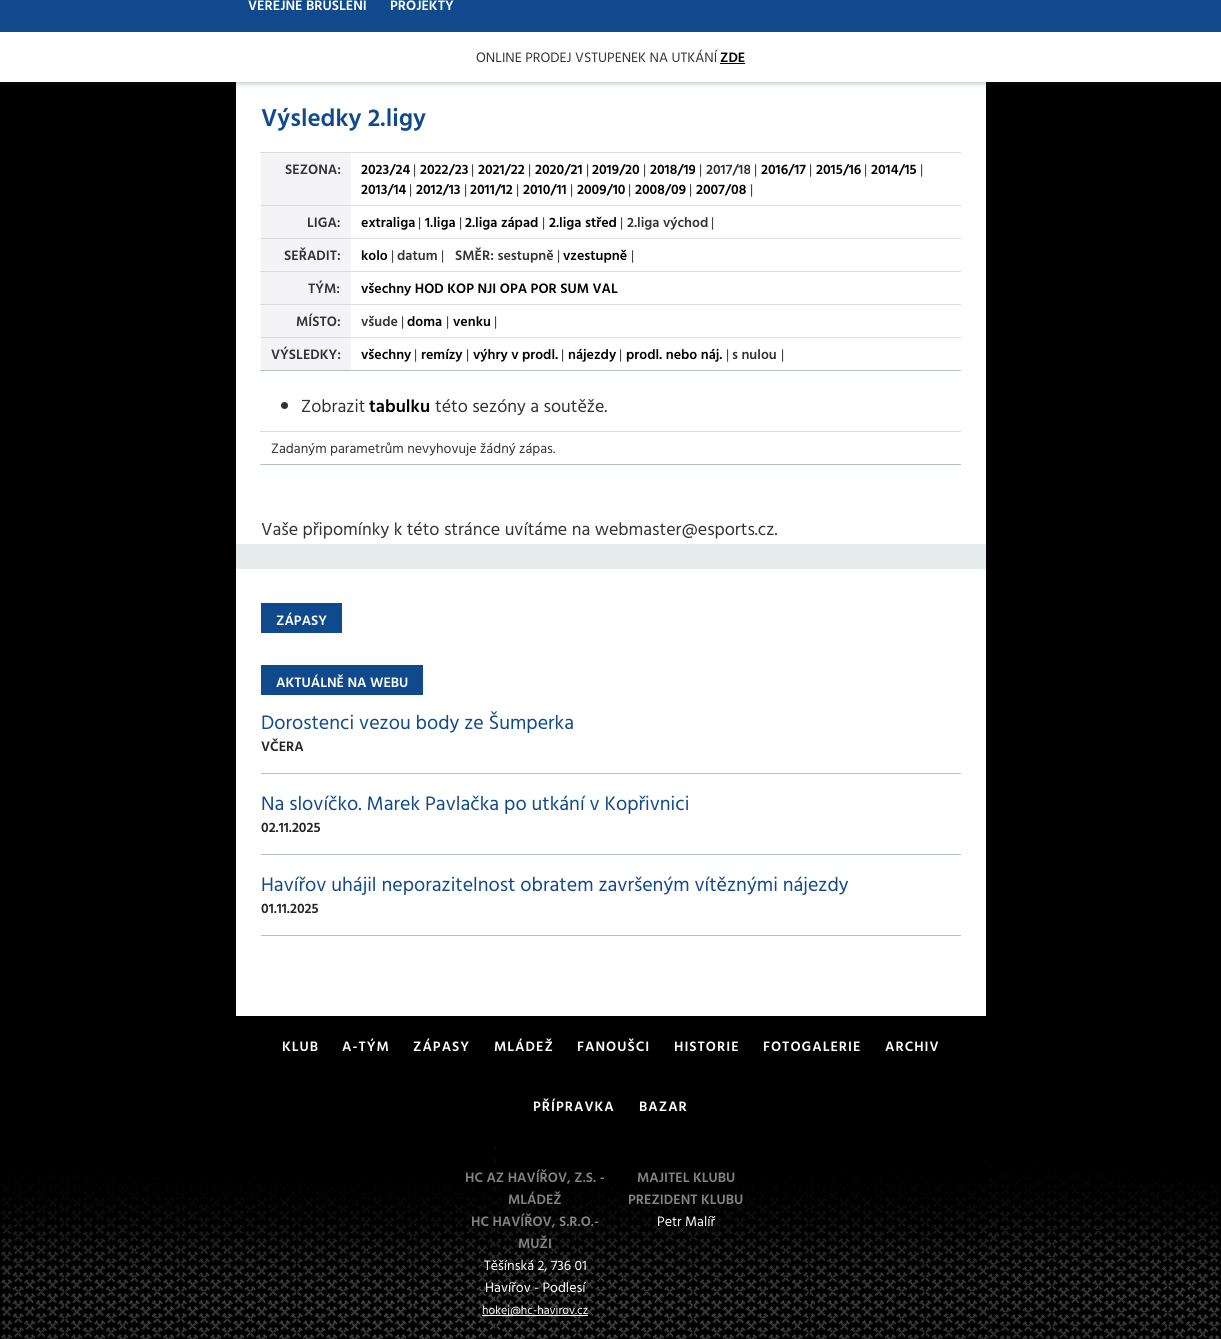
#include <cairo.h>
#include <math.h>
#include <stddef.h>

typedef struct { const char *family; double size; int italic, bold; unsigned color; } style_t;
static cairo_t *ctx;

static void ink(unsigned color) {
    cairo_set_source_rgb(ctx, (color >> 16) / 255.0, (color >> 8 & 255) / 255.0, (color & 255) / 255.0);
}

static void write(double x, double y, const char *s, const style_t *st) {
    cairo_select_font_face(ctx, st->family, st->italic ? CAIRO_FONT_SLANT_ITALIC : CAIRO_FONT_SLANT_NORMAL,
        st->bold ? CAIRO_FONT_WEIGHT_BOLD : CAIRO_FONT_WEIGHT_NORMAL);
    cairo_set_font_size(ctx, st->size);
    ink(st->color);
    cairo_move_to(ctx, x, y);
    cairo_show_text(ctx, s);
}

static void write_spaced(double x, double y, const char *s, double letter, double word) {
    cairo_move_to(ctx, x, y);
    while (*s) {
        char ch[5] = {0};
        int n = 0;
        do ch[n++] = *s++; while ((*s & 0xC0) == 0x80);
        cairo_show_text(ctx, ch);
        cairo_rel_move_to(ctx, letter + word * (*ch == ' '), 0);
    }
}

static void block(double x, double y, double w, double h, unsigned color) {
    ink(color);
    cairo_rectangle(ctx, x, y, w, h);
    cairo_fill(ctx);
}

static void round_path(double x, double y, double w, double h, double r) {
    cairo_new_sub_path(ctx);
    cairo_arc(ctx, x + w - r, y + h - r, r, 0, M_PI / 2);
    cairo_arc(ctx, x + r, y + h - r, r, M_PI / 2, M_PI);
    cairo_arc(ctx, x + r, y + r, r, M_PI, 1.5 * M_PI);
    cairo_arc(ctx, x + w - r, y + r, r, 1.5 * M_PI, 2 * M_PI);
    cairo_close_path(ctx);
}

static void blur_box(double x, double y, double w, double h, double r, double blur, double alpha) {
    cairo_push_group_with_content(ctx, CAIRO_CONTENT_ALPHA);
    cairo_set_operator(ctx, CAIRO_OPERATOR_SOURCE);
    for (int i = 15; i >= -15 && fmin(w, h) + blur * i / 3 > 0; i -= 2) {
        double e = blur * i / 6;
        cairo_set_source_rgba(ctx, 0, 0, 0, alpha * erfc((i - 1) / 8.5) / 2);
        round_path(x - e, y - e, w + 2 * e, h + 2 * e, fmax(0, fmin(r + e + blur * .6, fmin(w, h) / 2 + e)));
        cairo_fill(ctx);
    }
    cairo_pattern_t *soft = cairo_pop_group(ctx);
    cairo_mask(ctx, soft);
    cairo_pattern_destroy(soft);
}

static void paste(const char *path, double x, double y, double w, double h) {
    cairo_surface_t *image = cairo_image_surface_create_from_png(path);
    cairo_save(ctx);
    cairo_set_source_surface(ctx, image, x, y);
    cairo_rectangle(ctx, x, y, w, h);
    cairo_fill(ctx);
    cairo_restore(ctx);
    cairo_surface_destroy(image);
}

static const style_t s1 = {"Hind Vadodara SemiBold", 14, 0, 0, 0xffffff};
static const style_t s2 = {"Hind Vadodara", 14, 0, 0, 0x333333};
static const style_t s3 = {"Hind Vadodara SemiBold", 14, 0, 0, 0x000000};
static const style_t s4 = {"Hind Vadodara SemiBold", 25, 0, 0, 0x104a8d};
static const style_t s5 = {"Hind Vadodara SemiBold", 14, 0, 0, 0x333333};
static const style_t s6 = {"Hind Vadodara", 18, 0, 0, 0x333333};
static const style_t s7 = {"Hind Vadodara SemiBold", 18, 0, 0, 0x000000};
static const style_t s8 = {"Hind Vadodara", 20, 0, 0, 0x104a8d};
static const style_t s9 = {"Hind Vadodara SemiBold", 14, 0, 0, 0x222326};
static const style_t s10 = {"Hind Vadodara SemiBold", 14, 0, 0, 0x838383};
static const style_t s11 = {"Hind Vadodara", 14, 0, 0, 0xffffff};
static const style_t s12 = {"Hind Vadodara", 12, 0, 0, 0xffffff};

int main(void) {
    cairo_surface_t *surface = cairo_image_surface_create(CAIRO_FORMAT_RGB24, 1221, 1339);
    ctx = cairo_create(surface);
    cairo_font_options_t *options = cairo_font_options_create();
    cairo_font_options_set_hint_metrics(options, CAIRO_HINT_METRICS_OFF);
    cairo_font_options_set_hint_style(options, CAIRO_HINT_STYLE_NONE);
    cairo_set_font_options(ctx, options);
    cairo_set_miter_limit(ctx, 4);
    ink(0x000000);
    cairo_paint(ctx);
    block(0, 0, 1221, 32, 0x104a8d);
    write(248, 10, "VEŘEJNÉ BRUSLENÍ", &s1);
    write(390, 10, "PROJEKTY", &s1);
    block(236, 82, 750, 462, 0xffffff);
    ink(0x0b325f);
    blur_box(0, 34, 1221, 50, 0, 2.5, 0.25);
    block(0, 32, 1221, 50, 0xffffff);
    write(476, 62, "ONLINE PRODEJ VSTUPENEK NA UTKÁNÍ", &s2);
    write(720, 62, "ZDE", &s3);
    block(720, 63, 25, 1, 0x000000);
    block(236, 544, 750, 25, 0xe6ebec);
    write(261, 126, "Výsledky 2.ligy", &s4);
    block(261, 153, 90, 52, 0xf4f4f6);
    write(285, 174, "SEZONA:", &s5);
    block(260, 152, 701, 1, 0xdddddd);
    write(361, 174, "2023/24", &s3);
    write(413, 174, "|", &s2);
    write(420, 174, "2022/23", &s3);
    write(471, 174, "|", &s2);
    write(478, 174, "2021/22", &s3);
    write(528, 174, "|", &s2);
    write(535, 174, "2020/21", &s3);
    write(586, 174, "|", &s2);
    write(592, 174, "2019/20", &s3);
    write(643, 174, "|", &s2);
    write(650, 174, "2018/19", &s3);
    write(699, 174, "|", &s2);
    write(706, 174, "2017/18", &s5);
    write(754, 174, "|", &s2);
    write(761, 174, "2016/17", &s3);
    write(809, 174, "|", &s2);
    write(816, 174, "2015/16", &s3);
    write(864, 174, "|", &s2);
    write(871, 174, "2014/15", &s3);
    write(920, 174, "|", &s2);
    write(361, 194, "2013/14", &s3);
    write(409, 194, "|", &s2);
    write(416, 194, "2012/13", &s3);
    write(464, 194, "|", &s2);
    write(470, 194, "2011/12", &s3);
    write(516, 194, "|", &s2);
    write(523, 194, "2010/11", &s3);
    write(570, 194, "|", &s2);
    write(577, 194, "2009/10", &s3);
    write(628, 194, "|", &s2);
    write(635, 194, "2008/09", &s3);
    write(689, 194, "|", &s2);
    write(696, 194, "2007/08", &s3);
    write(750, 194, "|", &s2);
    block(261, 206, 90, 32, 0xf4f4f6);
    write(307, 227, "LIGA:", &s5);
    block(260, 205, 701, 1, 0xdddddd);
    write(361, 227, "extraliga", &s3);
    write(418, 227, "|", &s2);
    write(425, 227, "1.liga", &s3);
    write(459, 227, "|", &s2);
    write(465, 227, "2.liga západ", &s3);
    write(542, 227, "|", &s2);
    write(549, 227, "2.liga střed", &s3);
    write(620, 227, "|", &s2);
    write(627, 227, "2.liga východ", &s5);
    write(711, 227, "|", &s2);
    block(261, 239, 90, 32, 0xf4f4f6);
    write(284, 260, "SEŘADIT:", &s5);
    block(260, 238, 701, 1, 0xdddddd);
    write(361, 260, "kolo", &s3);
    write(391, 260, "|", &s2);
    write(397, 260, "datum", &s5);
    write(441, 260, "|", &s2);
    write(455, 260, "SMĚR: sestupně", &s5);
    write(557, 260, "|", &s2);
    write(563, 260, "vzestupně", &s3);
    write(631, 260, "|", &s2);
    block(261, 272, 90, 32, 0xf4f4f6);
    write(308, 293, "TÝM:", &s5);
    block(260, 271, 701, 1, 0xdddddd);
    write(361, 293, "všechny HOD KOP NJI OPA POR SUM VAL", &s3);
    block(261, 305, 90, 32, 0xf4f4f6);
    write(296, 326, "MÍSTO:", &s5);
    block(260, 304, 701, 1, 0xdddddd);
    write(361, 326, "všude", &s5);
    write(401, 326, "|", &s2);
    write(407, 326, "doma", &s3);
    write(446, 326, "|", &s2);
    write(453, 326, "venku", &s3);
    write(494, 326, "|", &s2);
    block(260, 370, 701, 1, 0xb7c1cb);
    block(261, 338, 90, 32, 0xf4f4f6);
    write(271, 359, "VÝSLEDKY:", &s5);
    block(260, 337, 701, 1, 0xdddddd);
    write(361, 359, "všechny", &s3);
    write(414, 359, "|", &s2);
    write(421, 359, "remízy", &s3);
    write(466, 359, "|", &s2);
    write(473, 359, "výhry v prodl.", &s3);
    write(561, 359, "|", &s2);
    write(568, 359, "nájezdy", &s3);
    write(619, 359, "|", &s2);
    write(626, 359, "prodl. nebo náj.", &s3);
    write(726, 359, "|", &s2);
    write(732, 359, "s nulou", &s5);
    write(781, 359, "|", &s2);
    cairo_new_path(ctx);
    cairo_arc(ctx, 284.5, 405.5, 3.5, 0, 2 * M_PI);
    cairo_fill(ctx);
    write(301, 412, "Zobrazit", &s6);
    write(369, 412, "tabulku", &s7);
    write(435, 412, "této sezóny a soutěže.", &s6);
    block(260, 464, 701, 1, 0xb7c1cb);
    block(260, 431, 701, 1, 0xdddddd);
    write(271, 453, "Zadaným parametrům nevyhovuje žádný zápas.", &s2);
    write(261, 535, "Vaše připomínky k této stránce uvítáme na webmaster@esports.cz.", &s6);
    block(236, 569, 750, 447, 0xffffff);
    block(261, 603, 81, 30, 0x104a8d);
    write(276, 625, "ZÁPASY", &s1);
    block(261, 665, 162, 30, 0x104a8d);
    write(276, 687, "AKTUÁLNĚ NA WEBU", &s1);
    block(261, 773, 700, 1, 0xb7c1cb);
    write(261, 729, "Dorostenci vezou body ze Šumperka", &s8);
    write(261, 751, "VČERA", &s9);
    block(261, 854, 700, 1, 0xb7c1cb);
    write(261, 810, "Na slovíčko. Marek Pavlačka po utkání v Kopřivnici", &s8);
    write(261, 832, "02.11.2025", &s9);
    block(261, 935, 700, 1, 0xb7c1cb);
    write(261, 891, "Havířov uhájil neporazitelnost obratem završeným vítěznými nájezdy", &s8);
    write(261, 913, "01.11.2025", &s9);
    ink(0xffffff);
    write_spaced(282, 1051, "KLUB", 1, 0);
    write_spaced(342, 1051, "A-TÝM", 1, 0);
    write_spaced(413, 1051, "ZÁPASY", 1, 0);
    write_spaced(494, 1051, "MLÁDEŽ", 1, 0);
    write_spaced(577, 1051, "FANOUŠCI", 1, 0);
    write_spaced(674, 1051, "HISTORIE", 1, 0);
    write_spaced(763, 1051, "FOTOGALERIE", 1, 0);
    write_spaced(885, 1051, "ARCHIV", 1, 0);
    write_spaced(533, 1111, "PŘÍPRAVKA", 1, 0);
    write_spaced(639, 1111, "BAZAR", 1, 0);
    paste("pic1.png", 1, 1146, 1220, 193);
    write(465, 1182, "HC AZ HAVÍŘOV, Z.S. -", &s10);
    write(508, 1204, "MLÁDEŽ", &s10);
    write(471, 1226, "HC HAVÍŘOV, S.R.O.-", &s10);
    write(518, 1248, "MUŽI", &s10);
    write(484, 1270, "Těšínská 2, 736 01", &s11);
    write(485, 1292, "Havířov - Podlesí", &s11);
    block(482, 1315, 106, 1, 0xffffff);
    write(482, 1314, "hokej@hc-havirov.cz", &s12);
    write(637, 1182, "MAJITEL KLUBU", &s10);
    write(628, 1204, "PREZIDENT KLUBU", &s10);
    write(657, 1226, "Petr Malíř", &s11);
    cairo_surface_write_to_png(surface, "screenshot.png");
    cairo_font_options_destroy(options);
    cairo_destroy(ctx);
    cairo_surface_destroy(surface);
    return 0;
}
